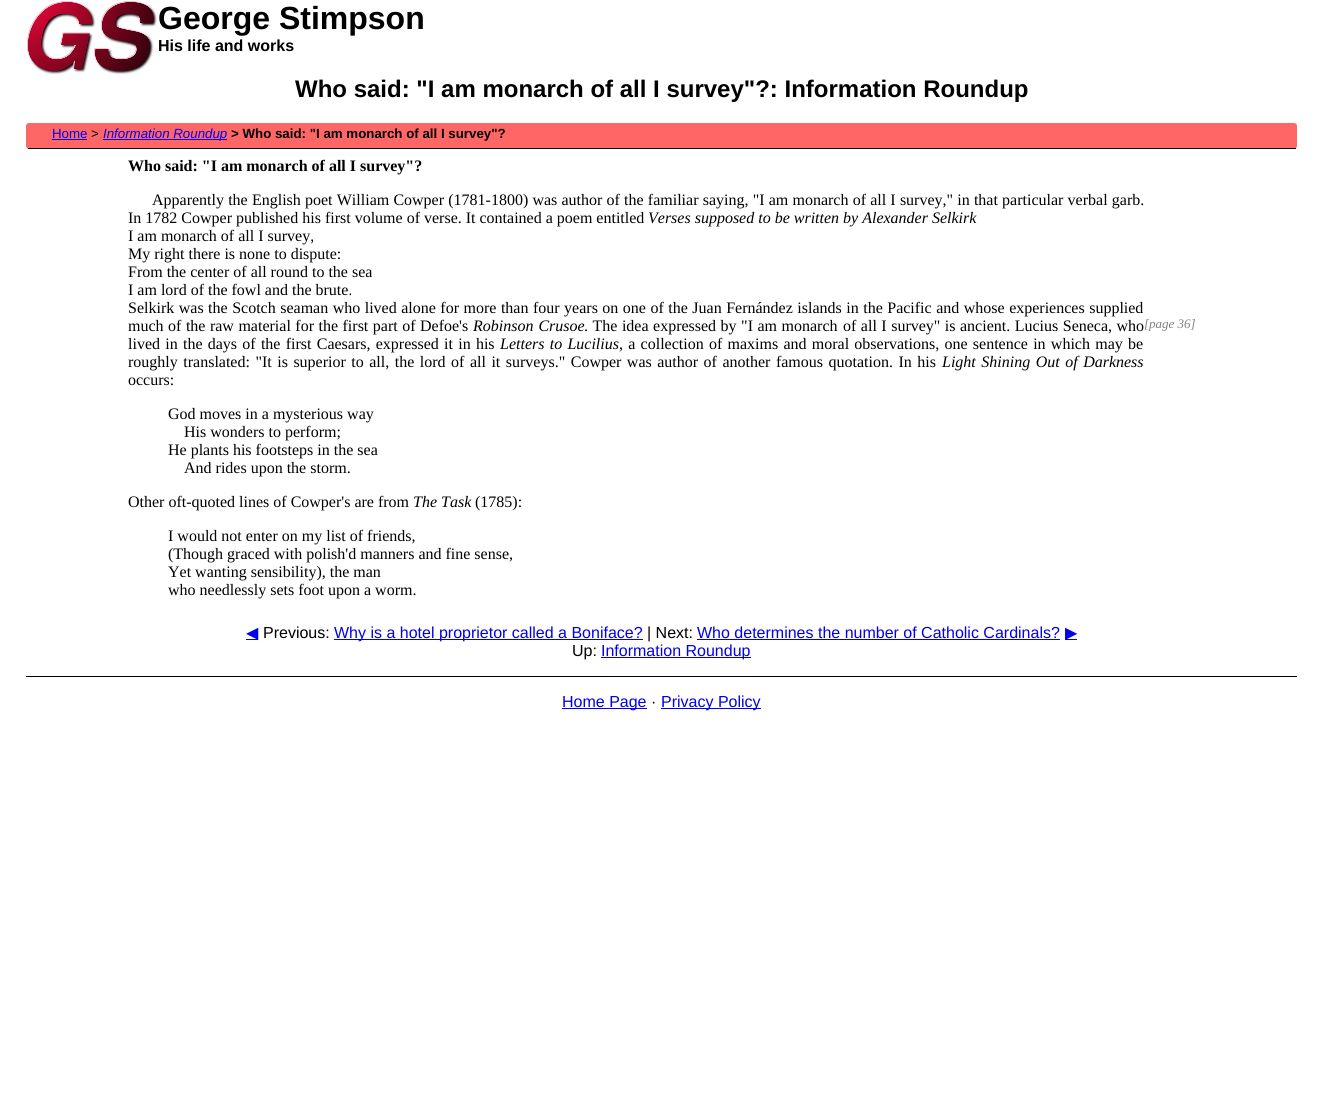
#include <cairo.h>
#include <math.h>
#include <stddef.h>

typedef struct { const char *family; double size; int italic, bold; unsigned color; } style_t;
static cairo_t *ctx;

static void ink(unsigned color) {
    cairo_set_source_rgb(ctx, (color >> 16) / 255.0, (color >> 8 & 255) / 255.0, (color & 255) / 255.0);
}

static void write(double x, double y, const char *s, const style_t *st) {
    cairo_select_font_face(ctx, st->family, st->italic ? CAIRO_FONT_SLANT_ITALIC : CAIRO_FONT_SLANT_NORMAL,
        st->bold ? CAIRO_FONT_WEIGHT_BOLD : CAIRO_FONT_WEIGHT_NORMAL);
    cairo_set_font_size(ctx, st->size);
    ink(st->color);
    cairo_move_to(ctx, x, y);
    cairo_show_text(ctx, s);
}

static void write_spaced(double x, double y, const char *s, double letter, double word) {
    cairo_move_to(ctx, x, y);
    while (*s) {
        char ch[5] = {0};
        int n = 0;
        do ch[n++] = *s++; while ((*s & 0xC0) == 0x80);
        cairo_show_text(ctx, ch);
        cairo_rel_move_to(ctx, letter + word * (*ch == ' '), 0);
    }
}

static void block(double x, double y, double w, double h, unsigned color) {
    ink(color);
    cairo_rectangle(ctx, x, y, w, h);
    cairo_fill(ctx);
}

static void round_path(double x, double y, double w, double h, double r) {
    cairo_new_sub_path(ctx);
    cairo_arc(ctx, x + w - r, y + h - r, r, 0, M_PI / 2);
    cairo_arc(ctx, x + r, y + h - r, r, M_PI / 2, M_PI);
    cairo_arc(ctx, x + r, y + r, r, M_PI, 1.5 * M_PI);
    cairo_arc(ctx, x + w - r, y + r, r, 1.5 * M_PI, 2 * M_PI);
    cairo_close_path(ctx);
}

static void paste(const char *path, double x, double y, double w, double h) {
    cairo_surface_t *image = cairo_image_surface_create_from_png(path);
    cairo_save(ctx);
    cairo_set_source_surface(ctx, image, x, y);
    cairo_rectangle(ctx, x, y, w, h);
    cairo_fill(ctx);
    cairo_restore(ctx);
    cairo_surface_destroy(image);
}

static const style_t s1 = {"Liberation Sans", 32, 0, 1, 0x000000};
static const style_t s2 = {"Liberation Sans", 16, 0, 1, 0x000000};
static const style_t s3 = {"Liberation Sans", 24, 0, 1, 0x000000};
static const style_t s4 = {"Liberation Sans", 13.3, 0, 0, 0x0000ee};
static const style_t s5 = {"Liberation Sans", 13.3, 0, 0, 0x000000};
static const style_t s6 = {"Liberation Sans", 13.3, 1, 0, 0x0000ee};
static const style_t s7 = {"Liberation Sans", 13.3, 0, 1, 0x000000};
static const style_t s8 = {"Liberation Serif", 16, 0, 1, 0x000000};
static const style_t s9 = {"Liberation Serif", 16, 0, 0, 0x000000};
static const style_t s10 = {"Liberation Serif", 16, 1, 0, 0x000000};
static const style_t s11 = {"Liberation Serif", 13, 1, 0, 0x808080};
static const style_t s12 = {"DejaVu Sans", 16, 0, 0, 0x0000ee};
static const style_t s13 = {"Liberation Sans", 16, 0, 0, 0x000000};
static const style_t s14 = {"Liberation Sans", 16, 0, 0, 0x0000ee};

int main(void) {
    cairo_surface_t *surface = cairo_image_surface_create(CAIRO_FORMAT_RGB24, 1323, 1106);
    ctx = cairo_create(surface);
    cairo_font_options_t *options = cairo_font_options_create();
    cairo_font_options_set_hint_metrics(options, CAIRO_HINT_METRICS_OFF);
    cairo_font_options_set_hint_style(options, CAIRO_HINT_STYLE_NONE);
    cairo_set_font_options(ctx, options);
    cairo_set_miter_limit(ctx, 4);
    ink(0xffffff);
    cairo_paint(ctx);
    paste("pic1.png", 27, 1, 130, 74);
    write(158, 29, "George Stimpson", &s1);
    write(158, 51, "His life and works", &s2);
    write(295, 97, "Who said: \"I am monarch of all I survey\"?: Information Roundup", &s3);
    ink(0xff6666);
    round_path(26, 123, 1271, 26, 3);
    cairo_fill(ctx);
    block(28, 148, 1268, 1, 0x000000);
    write(52, 138, "Home", &s4);
    block(52, 139, 35, 1, 0x0000ee);
    write(91, 138, ">", &s5);
    block(103, 139, 124, 1, 0x0000ee);
    write(103, 138, "Information Roundup", &s6);
    write(231, 138, "> Who said: \"I am monarch of all I survey\"?", &s7);
    write(128, 171, "Who said: \"I am monarch of all I survey\"?", &s8);
    cairo_select_font_face(ctx, "Liberation Serif", CAIRO_FONT_SLANT_NORMAL, CAIRO_FONT_WEIGHT_NORMAL);
    write_spaced(152, 205, "Apparently the English poet William Cowper (1781-1800) was author of the familiar saying, \"I am monarch of all I survey,\" in that particular verbal garb.", 0, 0.2);
    write(128, 223, "In 1782 Cowper published his first volume of verse. It contained a poem entitled", &s9);
    write(648, 223, "Verses supposed to be written by Alexander Selkirk", &s10);
    write(128, 241, "I am monarch of all I survey,", &s9);
    write(128, 259, "My right there is none to dispute:", &s9);
    write(128, 277, "From the center of all round to the sea", &s9);
    write(128, 295, "I am lord of the fowl and the brute.", &s9);
    write_spaced(128, 313, "Selkirk was the Scotch seaman who lived alone for more than four years on one of the Juan Fernández islands in the Pacific and whose experiences supplied", 0, 0.5);
    write_spaced(128, 331, "much of the raw material for the first part of Defoe's", 0, 0.5);
    cairo_select_font_face(ctx, "Liberation Serif", CAIRO_FONT_SLANT_ITALIC, CAIRO_FONT_WEIGHT_NORMAL);
    write_spaced(473, 331, "Robinson Crusoe", 0, 1);
    cairo_select_font_face(ctx, "Liberation Serif", CAIRO_FONT_SLANT_NORMAL, CAIRO_FONT_WEIGHT_NORMAL);
    write_spaced(584, 331, ". The idea expressed by \"I am monarch", 0, 0.5);
    write_spaced(843, 331, "of all I survey\" is ancient. Lucius Seneca, who", 0, 0.5);
    write(1144, 328, "[page 36]", &s11);
    cairo_select_font_face(ctx, "Liberation Serif", CAIRO_FONT_SLANT_NORMAL, CAIRO_FONT_WEIGHT_NORMAL);
    cairo_set_font_size(ctx, 16);
    ink(0x000000);
    write_spaced(128, 349, "lived in the days of the first Caesars, expressed it in his", 0, 1.25);
    cairo_select_font_face(ctx, "Liberation Serif", CAIRO_FONT_SLANT_ITALIC, CAIRO_FONT_WEIGHT_NORMAL);
    write_spaced(500, 349, "Letters to Lucilius", 0, 1.25);
    cairo_select_font_face(ctx, "Liberation Serif", CAIRO_FONT_SLANT_NORMAL, CAIRO_FONT_WEIGHT_NORMAL);
    write_spaced(619, 349, ", a collection of maxims and moral observations, one sentence in which may be", 0, 1.25);
    write_spaced(128, 367, "roughly translated: \"It is superior to all, the lord of all it surveys.\" Cowper was author of another famous quotation. In his", 0, 1.5);
    cairo_select_font_face(ctx, "Liberation Serif", CAIRO_FONT_SLANT_ITALIC, CAIRO_FONT_WEIGHT_NORMAL);
    write_spaced(942, 367, "Light Shining Out of Darkness", 0, 1.5);
    write(128, 385, "occurs:", &s9);
    write(168, 419, "God moves in a mysterious way", &s9);
    write(184, 437, "His wonders to perform;", &s9);
    write(168, 455, "He plants his footsteps in the sea", &s9);
    write(184, 473, "And rides upon the storm.", &s9);
    write(128, 507, "Other oft-quoted lines of Cowper's are from", &s9);
    write(413, 507, "The Task", &s10);
    write(475, 507, "(1785):", &s9);
    write(168, 541, "I would not enter on my list of friends,", &s9);
    write(168, 559, "(Though graced with polish'd manners and fine sense,", &s9);
    write(168, 577, "Yet wanting sensibility), the man", &s9);
    write(168, 595, "who needlessly sets foot upon a worm.", &s9);
    block(246, 639, 12, 1, 0x0000ee);
    write(246, 638, "◀", &s12);
    write(263, 638, "Previous:", &s13);
    block(334, 639, 309, 1, 0x0000ee);
    write(334, 638, "Why is a hotel proprietor called a Boniface?", &s14);
    write(647, 638, "| Next:", &s13);
    write(697, 638, "Who determines the number of Catholic Cardinals?", &s14);
    block(697, 639, 363, 1, 0x0000ee);
    block(1065, 639, 12, 1, 0x0000ee);
    write(1065, 638, "▶", &s12);
    write(572, 656, "Up:", &s13);
    block(601, 657, 150, 1, 0x0000ee);
    write(601, 656, "Information Roundup", &s14);
    block(26, 676, 1271, 1, 0x000000);
    block(562, 708, 85, 1, 0x0000ee);
    write(562, 707, "Home Page", &s14);
    write(651, 707, "·", &s13);
    block(661, 708, 100, 1, 0x0000ee);
    write(661, 707, "Privacy Policy", &s14);
    cairo_surface_write_to_png(surface, "screenshot.png");
    cairo_font_options_destroy(options);
    cairo_destroy(ctx);
    cairo_surface_destroy(surface);
    return 0;
}
